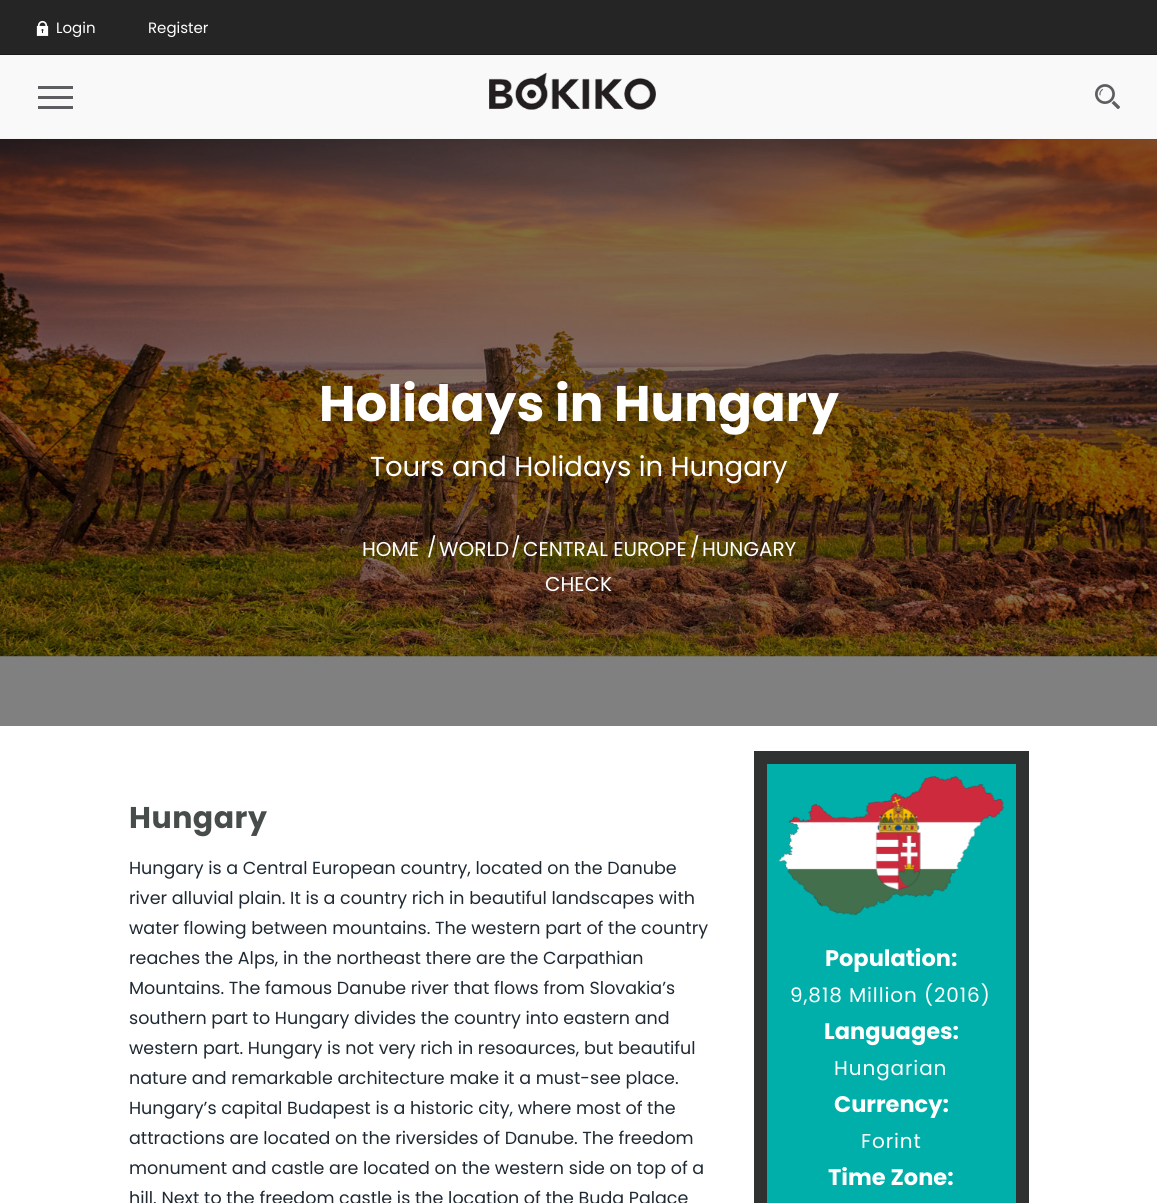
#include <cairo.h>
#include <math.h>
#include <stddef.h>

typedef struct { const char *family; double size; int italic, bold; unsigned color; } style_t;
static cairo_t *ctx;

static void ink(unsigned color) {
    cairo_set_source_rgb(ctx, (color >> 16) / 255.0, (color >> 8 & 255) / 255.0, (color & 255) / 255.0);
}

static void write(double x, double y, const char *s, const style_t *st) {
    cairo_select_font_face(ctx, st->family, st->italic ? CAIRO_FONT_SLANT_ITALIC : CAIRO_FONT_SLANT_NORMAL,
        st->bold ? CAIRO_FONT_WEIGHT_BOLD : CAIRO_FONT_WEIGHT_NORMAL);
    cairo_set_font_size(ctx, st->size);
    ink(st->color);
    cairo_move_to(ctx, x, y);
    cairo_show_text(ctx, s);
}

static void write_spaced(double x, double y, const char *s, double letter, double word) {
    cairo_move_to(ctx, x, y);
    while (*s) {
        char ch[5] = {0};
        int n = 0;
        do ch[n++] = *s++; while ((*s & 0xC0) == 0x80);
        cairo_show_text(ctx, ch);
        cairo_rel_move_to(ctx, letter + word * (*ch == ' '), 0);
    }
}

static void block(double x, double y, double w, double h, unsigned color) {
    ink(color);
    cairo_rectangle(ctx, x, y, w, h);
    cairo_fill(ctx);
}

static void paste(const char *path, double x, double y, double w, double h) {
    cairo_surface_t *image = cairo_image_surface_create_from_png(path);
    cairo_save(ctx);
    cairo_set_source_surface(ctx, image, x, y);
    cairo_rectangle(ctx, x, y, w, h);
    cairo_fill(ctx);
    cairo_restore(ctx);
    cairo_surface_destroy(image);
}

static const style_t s1 = {"Poppins", 15, 0, 0, 0xffffff};
static const style_t s2 = {"Poppins", 50, 0, 1, 0xffffff};
static const style_t s3 = {"Poppins", 27.5, 0, 0, 0xffffff};
static const style_t s4 = {"Poppins", 20, 0, 0, 0xffffff};
static const style_t s5 = {"Poppins", 17.5, 0, 0, 0x1f2933};
static const style_t s6 = {"Poppins", 22.5, 0, 1, 0xffffff};

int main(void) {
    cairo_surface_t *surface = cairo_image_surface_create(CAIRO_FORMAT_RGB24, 1157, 1203);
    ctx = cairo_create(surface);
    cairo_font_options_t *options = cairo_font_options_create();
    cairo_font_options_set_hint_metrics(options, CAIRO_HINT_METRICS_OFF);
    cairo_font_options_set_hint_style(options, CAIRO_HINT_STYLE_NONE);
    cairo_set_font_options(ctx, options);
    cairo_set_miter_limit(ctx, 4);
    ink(0xffffff);
    cairo_paint(ctx);
    block(0, 656, 1157, 70, 0x808080);
    paste("pic4.png", 0, 138, 1157, 519);
    cairo_set_source_rgba(ctx, 0.973, 0.973, 0.973, 0.88);
    cairo_rectangle(ctx, 0, 55, 1157, 84);
    cairo_fill(ctx);
    block(0, 0, 1157, 54, 0x252525);
    block(0, 54, 1157, 1, 0x1b1b1b);
    paste("pic1.png", 36, 20, 13, 16);
    write(56, 33, "Login", &s1);
    write(148, 33, "Register", &s1);
    block(38, 86, 35, 3, 0x5c5e62);
    block(38, 96, 35, 3, 0x5c5e62);
    block(38, 106, 35, 3, 0x5c5e62);
    paste("pic2.png", 489, 72, 167, 38);
    paste("pic3.png", 1095, 84, 25, 25);
    write(319, 421, "Holidays in Hungary", &s2);
    write(370, 476, "Tours and Holidays in Hungary", &s3);
    write(362, 556, "HOME", &s4);
    write(427, 554, "/", &s4);
    write(439, 556, "WORLD", &s4);
    write(511, 554, "/", &s4);
    write(523, 556, "CENTRAL EUROPE", &s4);
    write(690, 554, "/", &s4);
    write(702, 556, "HUNGARY", &s4);
    write(545, 591, "CHECK", &s4);
    cairo_select_font_face(ctx, "Poppins", CAIRO_FONT_SLANT_NORMAL, CAIRO_FONT_WEIGHT_BOLD);
    cairo_set_font_size(ctx, 30);
    ink(0x474d4b);
    write_spaced(129, 828, "Hungary", 0.5, 0);
    write(129, 874, "Hungary is a Central European country, located on the Danube", &s5);
    write(129, 904, "river alluvial plain. It is a country rich in beautiful landscapes with", &s5);
    write(129, 934, "water flowing between mountains. The western part of the country", &s5);
    write(129, 964, "reaches the Alps, in the northeast there are the Carpathian", &s5);
    write(129, 994, "Mountains. The famous Danube river that flows from Slovakia’s", &s5);
    write(129, 1024, "southern part to Hungary divides the country into eastern and", &s5);
    write(129, 1054, "western part. Hungary is not very rich in resoaurces, but beautiful", &s5);
    write(129, 1084, "nature and remarkable architecture make it a must-see place.", &s5);
    write(129, 1114, "Hungary’s capital Budapest is a historic city, where most of the", &s5);
    write(129, 1144, "attractions are located on the riversides of Danube. The freedom", &s5);
    write(129, 1174, "monument and castle are located on the western side on top of a", &s5);
    write(129, 1204, "hill. Next to the freedom castle is the location of the Buda Palace", &s5);
    ink(0x00afa9);
    cairo_rectangle(ctx, 760.5, 757.5, 262, 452);
    cairo_fill_preserve(ctx);
    ink(0x2f3231);
    cairo_set_line_width(ctx, 13);
    cairo_stroke(ctx);
    paste("pic5.png", 778, 776, 226, 140);
    write(825, 966, "Population:", &s6);
    cairo_select_font_face(ctx, "Poppins", CAIRO_FONT_SLANT_NORMAL, CAIRO_FONT_WEIGHT_NORMAL);
    cairo_set_font_size(ctx, 20);
    write_spaced(790, 1002, "9,818 Million (2016)", 0.9, 0);
    write(824, 1039, "Languages:", &s6);
    cairo_select_font_face(ctx, "Poppins", CAIRO_FONT_SLANT_NORMAL, CAIRO_FONT_WEIGHT_NORMAL);
    cairo_set_font_size(ctx, 20);
    write_spaced(834, 1075, "Hungarian", 0.9, 0);
    write(834, 1112, "Currency:", &s6);
    cairo_select_font_face(ctx, "Poppins", CAIRO_FONT_SLANT_NORMAL, CAIRO_FONT_WEIGHT_NORMAL);
    cairo_set_font_size(ctx, 20);
    write_spaced(861, 1148, "Forint", 0.9, 0);
    write(828, 1185, "Time Zone:", &s6);
    cairo_surface_write_to_png(surface, "screenshot.png");
    cairo_font_options_destroy(options);
    cairo_destroy(ctx);
    cairo_surface_destroy(surface);
    return 0;
}
